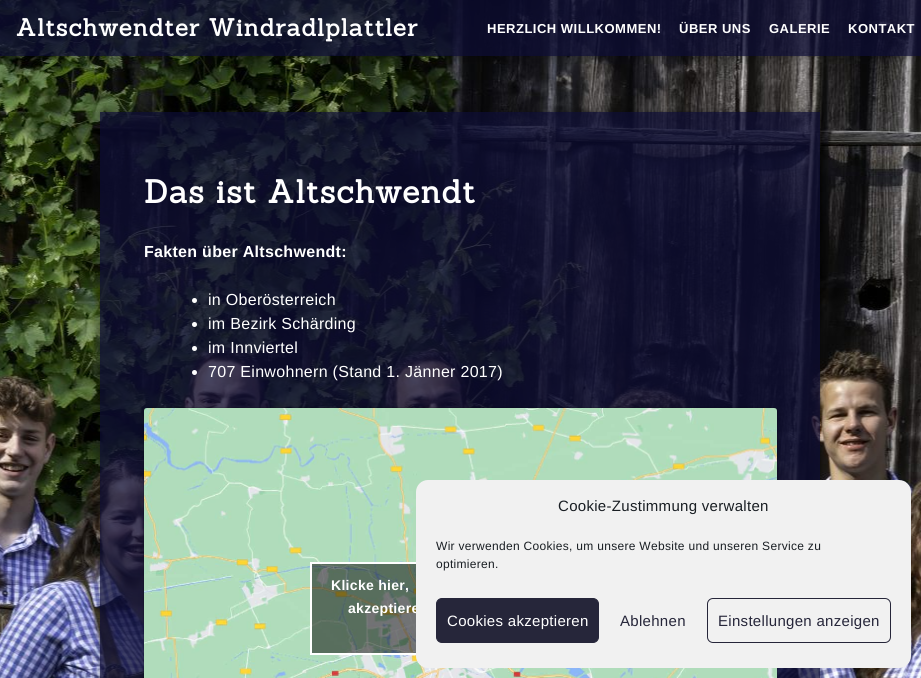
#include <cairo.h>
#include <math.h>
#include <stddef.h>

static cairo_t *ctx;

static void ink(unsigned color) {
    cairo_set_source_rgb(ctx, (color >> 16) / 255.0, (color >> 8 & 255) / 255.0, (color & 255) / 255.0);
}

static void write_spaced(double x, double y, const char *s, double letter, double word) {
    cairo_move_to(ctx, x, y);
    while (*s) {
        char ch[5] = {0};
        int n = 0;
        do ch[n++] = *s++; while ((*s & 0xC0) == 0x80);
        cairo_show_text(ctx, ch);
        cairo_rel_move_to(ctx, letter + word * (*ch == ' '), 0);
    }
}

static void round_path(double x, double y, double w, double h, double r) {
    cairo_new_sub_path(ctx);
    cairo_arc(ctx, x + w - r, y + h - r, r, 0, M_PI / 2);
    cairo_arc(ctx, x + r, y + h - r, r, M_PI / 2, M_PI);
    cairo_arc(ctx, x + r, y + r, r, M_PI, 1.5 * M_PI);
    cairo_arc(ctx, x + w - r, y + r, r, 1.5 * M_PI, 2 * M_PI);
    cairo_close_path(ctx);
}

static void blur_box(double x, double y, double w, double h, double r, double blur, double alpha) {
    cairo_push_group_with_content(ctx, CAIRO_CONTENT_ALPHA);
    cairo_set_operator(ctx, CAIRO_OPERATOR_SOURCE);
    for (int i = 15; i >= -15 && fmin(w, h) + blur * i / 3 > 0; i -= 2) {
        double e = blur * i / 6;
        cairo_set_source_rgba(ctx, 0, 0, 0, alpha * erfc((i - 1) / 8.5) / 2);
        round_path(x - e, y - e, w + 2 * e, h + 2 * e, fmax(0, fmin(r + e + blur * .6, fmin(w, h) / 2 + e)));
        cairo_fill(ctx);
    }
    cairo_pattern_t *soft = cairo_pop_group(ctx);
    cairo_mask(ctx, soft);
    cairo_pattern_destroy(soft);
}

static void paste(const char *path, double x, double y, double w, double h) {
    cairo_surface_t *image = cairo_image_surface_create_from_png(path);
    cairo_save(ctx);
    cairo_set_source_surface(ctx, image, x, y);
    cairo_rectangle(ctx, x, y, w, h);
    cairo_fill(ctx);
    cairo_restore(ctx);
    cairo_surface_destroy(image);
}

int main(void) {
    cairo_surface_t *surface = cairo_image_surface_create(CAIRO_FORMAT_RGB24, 921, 678);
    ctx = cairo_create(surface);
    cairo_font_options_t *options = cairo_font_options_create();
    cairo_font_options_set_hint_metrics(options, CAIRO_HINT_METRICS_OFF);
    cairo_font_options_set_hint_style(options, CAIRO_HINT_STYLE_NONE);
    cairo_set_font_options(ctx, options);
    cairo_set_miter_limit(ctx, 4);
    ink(0xffffff);
    cairo_paint(ctx);
    paste("pic1.png", 0, 0, 921, 678);
    cairo_save(ctx);
    cairo_rectangle(ctx, 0, 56, 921, 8);
    cairo_clip(ctx);
    ink(0x000000);
    blur_box(0, 0, 921, 56, 0, 5, 0.4);
    cairo_restore(ctx);
    cairo_set_source_rgba(ctx, 0.051, 0.051, 0.2, 0.75);
    cairo_rectangle(ctx, 0, 0, 921, 56);
    cairo_fill(ctx);
    cairo_select_font_face(ctx, "Sanchez", CAIRO_FONT_SLANT_NORMAL, CAIRO_FONT_WEIGHT_BOLD);
    cairo_set_font_size(ctx, 24);
    ink(0xffffff);
    write_spaced(16, 36, "Altschwendter Windradlplattler", 1, 0);
    cairo_select_font_face(ctx, "Liberation Sans", CAIRO_FONT_SLANT_NORMAL, CAIRO_FONT_WEIGHT_BOLD);
    cairo_set_font_size(ctx, 13);
    write_spaced(487, 33, "HERZLICH WILLKOMMEN!", 0.5, 0);
    write_spaced(679, 33, "ÜBER UNS", 0.5, 0);
    write_spaced(769, 33, "GALERIE", 0.5, 0);
    write_spaced(848, 33, "KONTAKT", 0.5, 0);
    cairo_save(ctx);
    cairo_set_fill_rule(ctx, CAIRO_FILL_RULE_EVEN_ODD);
    cairo_new_path(ctx);
    cairo_move_to(ctx, 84, 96);
    cairo_line_to(ctx, 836, 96);
    cairo_line_to(ctx, 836, 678);
    cairo_line_to(ctx, 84, 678);
    cairo_close_path(ctx);
    cairo_move_to(ctx, 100, 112);
    cairo_line_to(ctx, 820, 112);
    cairo_line_to(ctx, 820, 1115);
    cairo_line_to(ctx, 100, 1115);
    cairo_close_path(ctx);
    cairo_clip(ctx);
    ink(0x000000);
    blur_box(100, 112, 720, 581, 0, 5, 0.4);
    cairo_restore(ctx);
    cairo_set_source_rgba(ctx, 0.051, 0.051, 0.2, 0.75);
    cairo_rectangle(ctx, 100, 112, 720, 566);
    cairo_fill(ctx);
    cairo_select_font_face(ctx, "Sanchez", CAIRO_FONT_SLANT_NORMAL, CAIRO_FONT_WEIGHT_BOLD);
    cairo_set_font_size(ctx, 32);
    ink(0xffffff);
    write_spaced(144, 203, "Das ist Altschwendt", 1, 0);
    cairo_select_font_face(ctx, "Liberation Sans", CAIRO_FONT_SLANT_NORMAL, CAIRO_FONT_WEIGHT_BOLD);
    cairo_set_font_size(ctx, 16);
    write_spaced(144, 257, "Fakten über Altschwendt:", 0.3, 0);
    cairo_new_path(ctx);
    cairo_arc(ctx, 194.5, 300.5, 2.5, 0, 2 * M_PI);
    cairo_fill(ctx);
    cairo_select_font_face(ctx, "Liberation Sans", CAIRO_FONT_SLANT_NORMAL, CAIRO_FONT_WEIGHT_NORMAL);
    write_spaced(208, 305, "in Oberösterreich", 0.3, 0);
    cairo_new_path(ctx);
    cairo_arc(ctx, 194.5, 324.5, 2.5, 0, 2 * M_PI);
    cairo_fill(ctx);
    write_spaced(208, 329, "im Bezirk Schärding", 0.3, 0);
    cairo_new_path(ctx);
    cairo_arc(ctx, 194.5, 348.5, 2.5, 0, 2 * M_PI);
    cairo_fill(ctx);
    write_spaced(208, 353, "im Innviertel", 0.3, 0);
    cairo_new_path(ctx);
    cairo_arc(ctx, 194.5, 372.5, 2.5, 0, 2 * M_PI);
    cairo_fill(ctx);
    write_spaced(208, 377, "707 Einwohnern (Stand 1. Jänner 2017)", 0.3, 0);
    ink(0x000000);
    blur_box(144, 409, 633, 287, 3, 5, 0.15);
    blur_box(144, 408, 633, 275, 3, 0.5, 0.5);
    paste("pic2.png", 144, 408, 633, 270);
    cairo_set_source_rgba(ctx, 0, 0, 0, 0.5);
    cairo_rectangle(ctx, 312, 564, 104, 89);
    cairo_fill(ctx);
    cairo_rectangle(ctx, 311, 563, 298, 91);
    ink(0xffffff);
    cairo_stroke(ctx);
    cairo_select_font_face(ctx, "Liberation Sans", CAIRO_FONT_SLANT_NORMAL, CAIRO_FONT_WEIGHT_BOLD);
    cairo_set_font_size(ctx, 14);
    write_spaced(331, 590, "Klicke hier,", 0.3, 0);
    write_spaced(348, 613, "akzeptiere", 0.3, 0);
    ink(0xf1f1f1);
    round_path(416, 480, 495, 188, 12);
    cairo_fill(ctx);
    cairo_select_font_face(ctx, "Liberation Sans", CAIRO_FONT_SLANT_NORMAL, CAIRO_FONT_WEIGHT_NORMAL);
    cairo_set_font_size(ctx, 15);
    ink(0x191e23);
    write_spaced(558, 511, "Cookie-Zustimmung verwalten", 0.3, 0);
    cairo_set_font_size(ctx, 12);
    write_spaced(436, 550, "Wir verwenden Cookies, um unsere Website und unseren Service zu", 0.3, 0);
    write_spaced(436, 568, "optimieren.", 0.3, 0);
    ink(0x26263a);
    round_path(436.5, 598.5, 162, 44, 5.5);
    cairo_fill_preserve(ctx);
    cairo_set_line_width(ctx, 1);
    cairo_stroke(ctx);
    cairo_set_font_size(ctx, 15);
    ink(0xffffff);
    write_spaced(447, 626, "Cookies akzeptieren", 0.3, 0);
    ink(0x26263a);
    write_spaced(620, 626, "Ablehnen", 0.3, 0);
    round_path(707.5, 598.5, 183, 44, 5.5);
    cairo_stroke(ctx);
    write_spaced(718, 626, "Einstellungen anzeigen", 0.3, 0);
    cairo_surface_write_to_png(surface, "screenshot.png");
    cairo_font_options_destroy(options);
    cairo_destroy(ctx);
    cairo_surface_destroy(surface);
    return 0;
}
